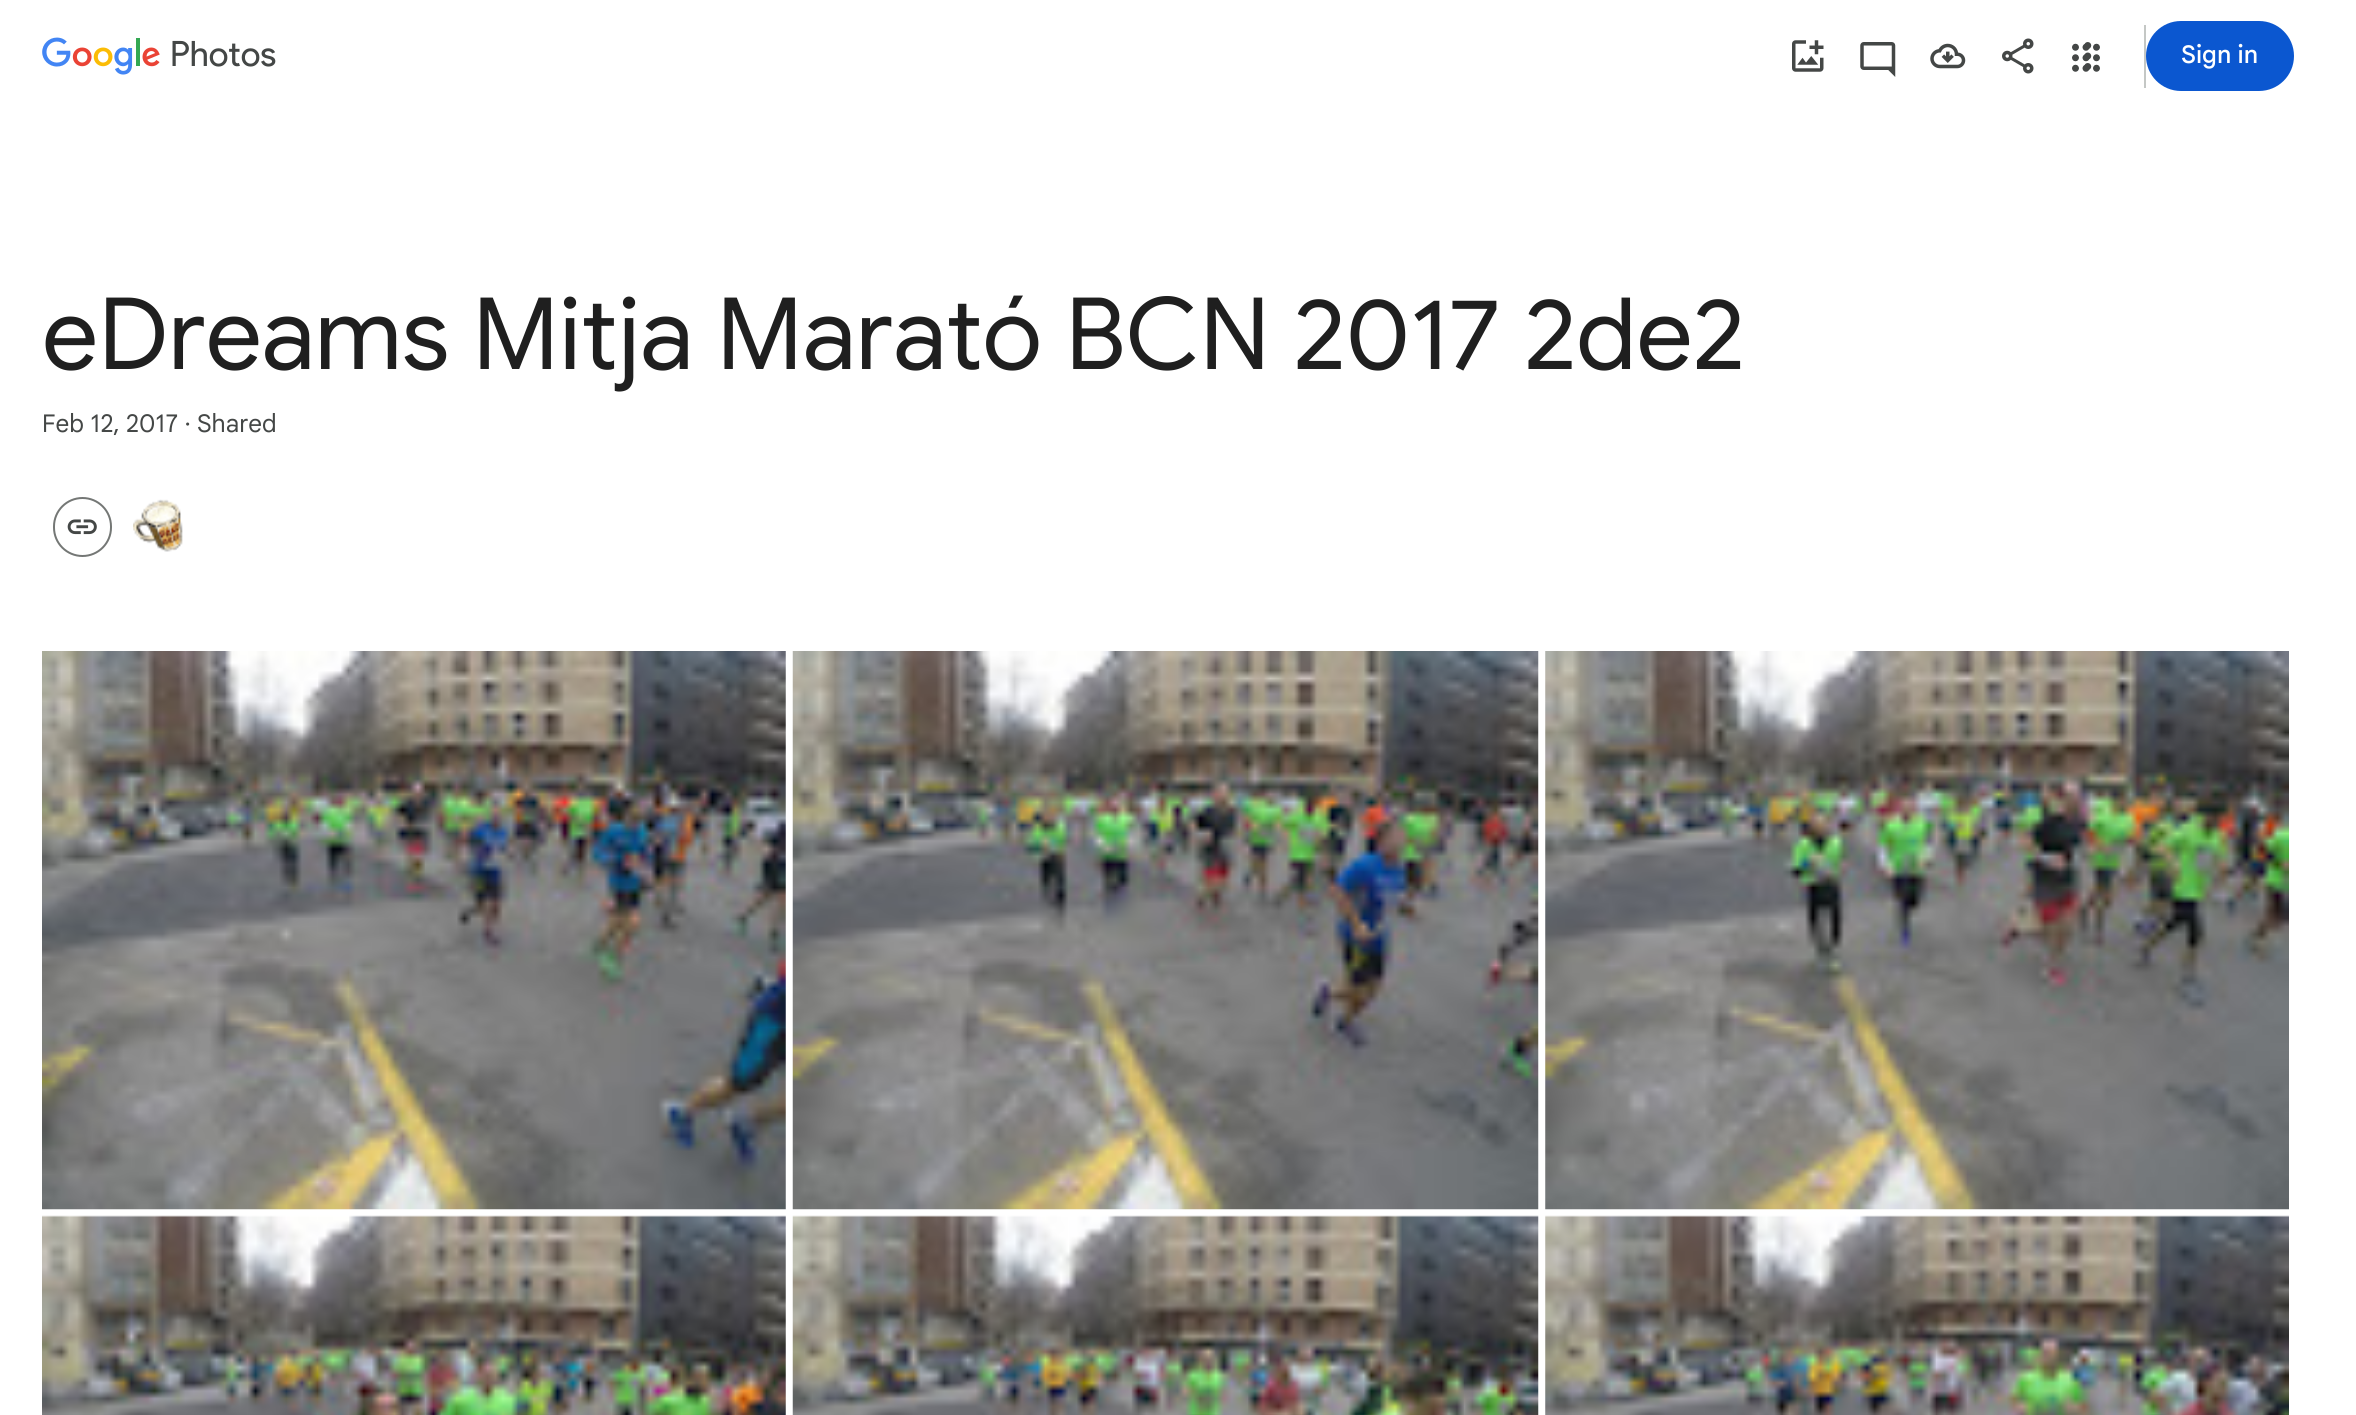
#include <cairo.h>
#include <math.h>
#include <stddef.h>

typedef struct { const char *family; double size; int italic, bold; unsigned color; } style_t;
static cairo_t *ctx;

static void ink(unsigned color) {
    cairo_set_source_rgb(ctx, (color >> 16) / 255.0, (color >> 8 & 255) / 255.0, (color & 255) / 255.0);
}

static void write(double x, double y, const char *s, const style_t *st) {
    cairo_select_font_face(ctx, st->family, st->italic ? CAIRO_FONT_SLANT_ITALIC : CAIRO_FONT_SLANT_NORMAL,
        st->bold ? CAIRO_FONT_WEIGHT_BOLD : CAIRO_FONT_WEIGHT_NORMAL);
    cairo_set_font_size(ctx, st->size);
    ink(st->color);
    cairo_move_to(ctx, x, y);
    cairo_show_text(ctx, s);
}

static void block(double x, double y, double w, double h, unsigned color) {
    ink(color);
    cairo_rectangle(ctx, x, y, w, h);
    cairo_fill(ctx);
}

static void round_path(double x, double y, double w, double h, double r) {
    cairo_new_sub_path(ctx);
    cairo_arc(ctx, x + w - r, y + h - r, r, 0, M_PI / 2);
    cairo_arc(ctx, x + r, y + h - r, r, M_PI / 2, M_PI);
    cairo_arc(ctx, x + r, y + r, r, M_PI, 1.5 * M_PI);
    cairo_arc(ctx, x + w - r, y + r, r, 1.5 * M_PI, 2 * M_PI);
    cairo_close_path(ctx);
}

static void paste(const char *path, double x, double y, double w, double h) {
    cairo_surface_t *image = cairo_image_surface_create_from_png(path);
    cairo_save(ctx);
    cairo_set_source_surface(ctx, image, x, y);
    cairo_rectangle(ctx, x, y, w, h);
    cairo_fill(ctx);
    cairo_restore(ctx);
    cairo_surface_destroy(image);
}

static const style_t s1 = {"Product Sans", 35, 0, 0, 0x444746};
static const style_t s2 = {"Google Sans", 99.75, 0, 0, 0x1f1f1f};
static const style_t s3 = {"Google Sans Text", 24.5, 0, 0, 0x444746};
static const style_t s4 = {"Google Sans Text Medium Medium", 24.5, 0, 0, 0xffffff};

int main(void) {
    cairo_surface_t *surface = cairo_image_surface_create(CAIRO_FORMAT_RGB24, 2356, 1415);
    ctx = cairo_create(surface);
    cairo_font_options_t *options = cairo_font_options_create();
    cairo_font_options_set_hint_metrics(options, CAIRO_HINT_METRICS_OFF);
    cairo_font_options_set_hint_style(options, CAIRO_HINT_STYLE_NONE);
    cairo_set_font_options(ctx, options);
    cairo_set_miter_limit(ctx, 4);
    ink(0xffffff);
    cairo_paint(ctx);
    paste("pic1.png", 42, 37, 118, 38);
    write(170, 66, "Photos", &s1);
    paste("pic2.png", 1792, 40, 32, 32);
    paste("pic3.png", 1860, 42, 36, 35);
    paste("pic4.png", 1930, 43, 36, 26);
    paste("pic5.png", 2002, 38, 32, 36);
    paste("pic6.png", 2084, 42, 8, 28);
    block(2144, 25, 2, 63, 0xc4c7c5);
    write(42, 369, "eDreams Mitja Marató BCN 2017 2de2", &s2);
    write(42, 432, "Feb 12, 2017 · Shared", &s3);
    round_path(54, 498, 57, 58, 28.5);
    ink(0x747775);
    cairo_stroke(ctx);
    paste("pic7.png", 67, 519, 30, 16);
    paste("pic8.png", 133, 499, 50, 53);
    paste("pic9.png", 42, 651, 744, 559);
    paste("pic10.png", 792, 651, 747, 559);
    paste("pic11.png", 1545, 651, 744, 559);
    paste("pic12.png", 42, 1215, 744, 200);
    paste("pic13.png", 792, 1215, 747, 200);
    paste("pic14.png", 1545, 1215, 744, 200);
    paste("pic15.png", 2072, 43, 28, 29);
    ink(0x0b57d0);
    round_path(2146, 21, 148, 70, 35);
    cairo_fill(ctx);
    write(2181, 63, "Sign in", &s4);
    cairo_surface_write_to_png(surface, "screenshot.png");
    cairo_font_options_destroy(options);
    cairo_destroy(ctx);
    cairo_surface_destroy(surface);
    return 0;
}
